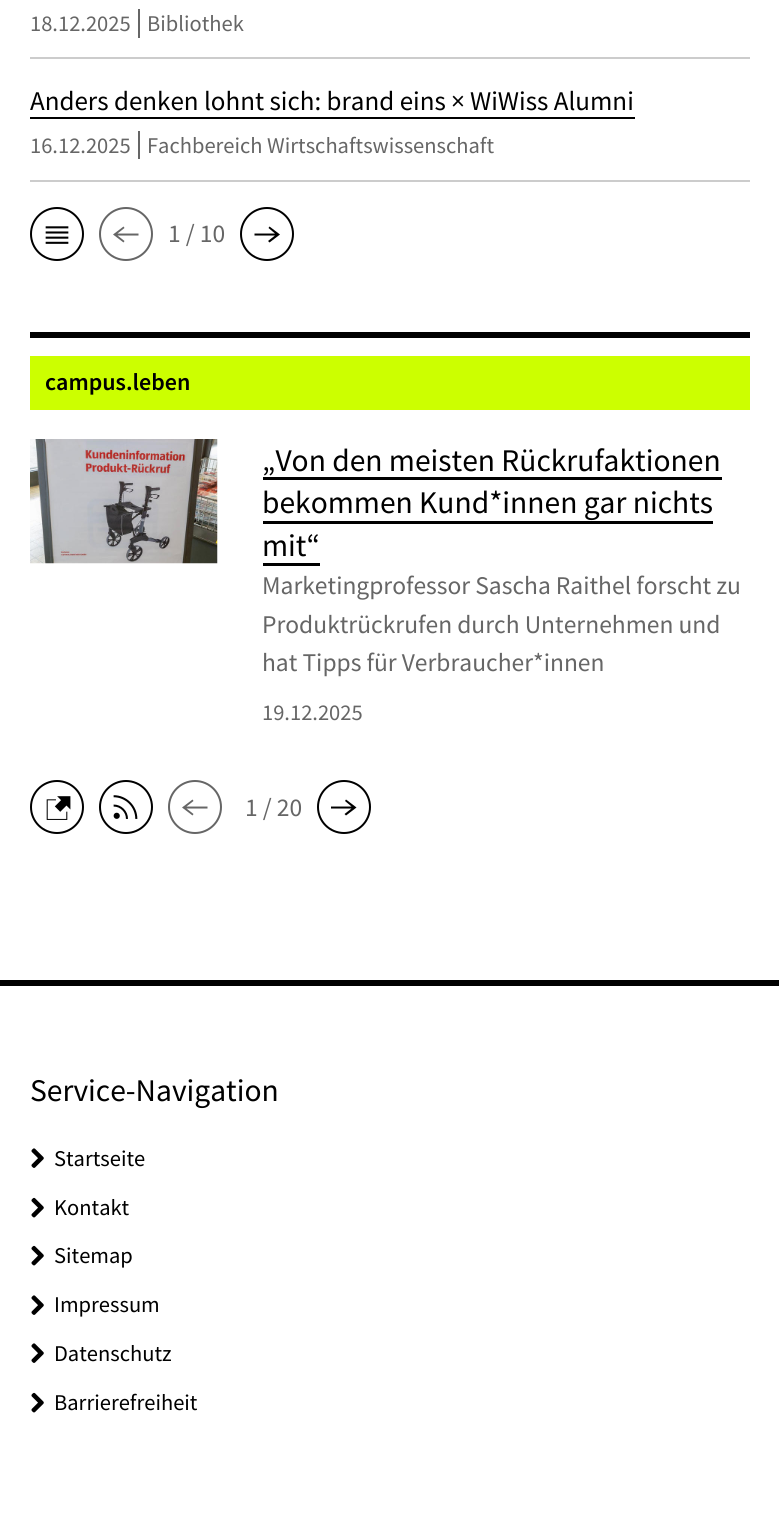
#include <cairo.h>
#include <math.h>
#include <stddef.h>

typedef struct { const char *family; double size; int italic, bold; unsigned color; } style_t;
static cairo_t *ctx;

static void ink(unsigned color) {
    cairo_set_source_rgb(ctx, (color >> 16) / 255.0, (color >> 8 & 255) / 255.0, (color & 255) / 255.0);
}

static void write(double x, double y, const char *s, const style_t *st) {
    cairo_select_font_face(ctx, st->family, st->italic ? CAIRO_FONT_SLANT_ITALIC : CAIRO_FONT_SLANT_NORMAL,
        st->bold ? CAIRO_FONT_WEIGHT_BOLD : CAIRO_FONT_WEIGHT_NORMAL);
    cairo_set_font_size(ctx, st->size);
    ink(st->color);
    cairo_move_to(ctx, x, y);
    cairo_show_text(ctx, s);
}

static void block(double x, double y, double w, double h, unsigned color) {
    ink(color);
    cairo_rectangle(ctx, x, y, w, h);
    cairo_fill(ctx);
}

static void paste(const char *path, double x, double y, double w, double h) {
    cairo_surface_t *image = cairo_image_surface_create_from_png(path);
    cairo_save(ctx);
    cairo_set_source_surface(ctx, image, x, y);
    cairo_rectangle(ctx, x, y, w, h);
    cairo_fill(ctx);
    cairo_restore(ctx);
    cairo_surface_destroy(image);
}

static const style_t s1 = {"Source Sans Pro", 22.5, 0, 0, 0x666666};
static const style_t s2 = {"Source Sans Pro", 27, 0, 0, 0x000000};
static const style_t s3 = {"Source Sans Pro", 25.5, 0, 0, 0x666666};
static const style_t s4 = {"Source Sans Pro SemiBold", 24, 0, 0, 0x000000};
static const style_t s5 = {"Source Sans Pro", 31.5, 0, 0, 0x000000};
static const style_t s6 = {"Source Sans Pro", 22.5, 0, 0, 0x000000};

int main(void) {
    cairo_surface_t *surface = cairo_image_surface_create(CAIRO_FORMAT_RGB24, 779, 1528);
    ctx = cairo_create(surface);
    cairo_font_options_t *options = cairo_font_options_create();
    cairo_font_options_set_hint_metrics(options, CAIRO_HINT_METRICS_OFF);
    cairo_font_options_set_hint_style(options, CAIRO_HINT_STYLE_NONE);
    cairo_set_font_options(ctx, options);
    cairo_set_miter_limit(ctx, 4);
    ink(0xffffff);
    cairo_paint(ctx);
    block(30, 57, 720, 2, 0xcccccc);
    write(30, 31, "18.12.2025", &s1);
    write(147, 31, "Bibliothek", &s1);
    block(138, 9, 2, 29, 0x666666);
    block(30, 180, 720, 2, 0xcccccc);
    write(30, 110, "Anders denken lohnt sich: brand eins × WiWiss Alumni", &s2);
    block(30, 117, 605, 2, 0x000000);
    write(30, 153, "16.12.2025", &s1);
    write(147, 153, "Fachbereich Wirtschaftswissenschaft", &s1);
    block(138, 131, 2, 28, 0x666666);
    cairo_new_path(ctx);
    cairo_arc(ctx, 57, 234, 26, 0, 2 * M_PI);
    ink(0x000000);
    cairo_stroke(ctx);
    paste("pic1.png", 45, 226, 24, 18);
    cairo_arc(ctx, 126, 234, 26, 0, 2 * M_PI);
    ink(0x666666);
    cairo_stroke(ctx);
    cairo_new_path(ctx);
    cairo_move_to(ctx, 138.5, 233.5);
    cairo_line_to(ctx, 117.5, 233.5);
    cairo_line_to(ctx, 124.5, 228);
    cairo_line_to(ctx, 123.5, 226.5);
    cairo_line_to(ctx, 113, 234.5);
    cairo_line_to(ctx, 123.5, 242.5);
    cairo_line_to(ctx, 124.5, 241);
    cairo_line_to(ctx, 117.5, 235.5);
    cairo_line_to(ctx, 138.5, 235.5);
    cairo_close_path(ctx);
    cairo_fill(ctx);
    write(168, 242, "1 / 10", &s3);
    cairo_new_path(ctx);
    cairo_arc(ctx, 267, 234, 26, 0, 2 * M_PI);
    ink(0x000000);
    cairo_stroke(ctx);
    cairo_new_path(ctx);
    cairo_move_to(ctx, 269.5, 226.5);
    cairo_line_to(ctx, 268.5, 228);
    cairo_line_to(ctx, 275, 233.5);
    cairo_line_to(ctx, 254.5, 233.5);
    cairo_line_to(ctx, 254.5, 235.5);
    cairo_line_to(ctx, 275, 235.5);
    cairo_line_to(ctx, 268, 241);
    cairo_line_to(ctx, 269.5, 242.5);
    cairo_line_to(ctx, 280, 234.5);
    cairo_close_path(ctx);
    cairo_fill(ctx);
    block(30, 332, 720, 6, 0x000000);
    block(30, 356, 720, 54, 0xccff00);
    write(45, 390, "campus.leben", &s4);
    paste("pic2.png", 30, 439, 188, 125);
    write(262, 471, "„Von den meisten Rückrufaktionen", &s5);
    block(263, 477, 459, 3, 0x000000);
    write(262, 513, "bekommen Kund*innen gar nichts", &s5);
    block(263, 521, 450, 3, 0x000000);
    write(262, 556, "mit“", &s5);
    block(263, 563, 57, 3, 0x000000);
    write(262, 594, "Marketingprofessor Sascha Raithel forscht zu", &s3);
    write(262, 633, "Produktrückrufen durch Unternehmen und", &s3);
    write(262, 671, "hat Tipps für Verbraucher*innen", &s3);
    write(262, 720, "19.12.2025", &s1);
    cairo_new_path(ctx);
    cairo_arc(ctx, 57, 807, 26, 0, 2 * M_PI);
    ink(0x000000);
    cairo_stroke(ctx);
    paste("pic3.png", 46, 796, 25, 24);
    cairo_arc(ctx, 126, 807, 26, 0, 2 * M_PI);
    cairo_stroke(ctx);
    paste("pic4.png", 113, 795, 25, 24);
    cairo_arc(ctx, 195, 807, 26, 0, 2 * M_PI);
    ink(0x666666);
    cairo_stroke(ctx);
    cairo_new_path(ctx);
    cairo_move_to(ctx, 207.5, 806.5);
    cairo_line_to(ctx, 186.5, 806.5);
    cairo_line_to(ctx, 193.5, 801);
    cairo_line_to(ctx, 192.5, 799.5);
    cairo_line_to(ctx, 182, 807.5);
    cairo_line_to(ctx, 192.5, 815.5);
    cairo_line_to(ctx, 193.5, 814);
    cairo_line_to(ctx, 186.5, 808.5);
    cairo_line_to(ctx, 207.5, 808.5);
    cairo_close_path(ctx);
    cairo_fill(ctx);
    write(245, 816, "1 / 20", &s3);
    cairo_new_path(ctx);
    cairo_arc(ctx, 344, 807, 26, 0, 2 * M_PI);
    ink(0x000000);
    cairo_stroke(ctx);
    cairo_new_path(ctx);
    cairo_move_to(ctx, 346, 799.5);
    cairo_line_to(ctx, 345, 801);
    cairo_line_to(ctx, 351.5, 806.5);
    cairo_line_to(ctx, 331, 806.5);
    cairo_line_to(ctx, 331, 808.5);
    cairo_line_to(ctx, 351.5, 808.5);
    cairo_line_to(ctx, 344.5, 814);
    cairo_line_to(ctx, 346, 815.5);
    cairo_line_to(ctx, 356.5, 807.5);
    cairo_close_path(ctx);
    cairo_fill(ctx);
    block(0, 980, 779, 6, 0x000000);
    write(30, 1101, "Service-Navigation", &s5);
    paste("pic5.png", 31, 1148, 13, 20);
    write(54, 1166, "Startseite", &s6);
    paste("pic6.png", 31, 1197, 13, 21);
    write(54, 1215, "Kontakt", &s6);
    paste("pic6.png", 31, 1245, 13, 21);
    write(54, 1263, "Sitemap", &s6);
    paste("pic5.png", 31, 1295, 13, 20);
    write(54, 1312, "Impressum", &s6);
    paste("pic5.png", 31, 1343, 13, 20);
    write(54, 1361, "Datenschutz", &s6);
    paste("pic6.png", 31, 1392, 13, 21);
    write(54, 1410, "Barrierefreiheit", &s6);
    cairo_surface_write_to_png(surface, "screenshot.png");
    cairo_font_options_destroy(options);
    cairo_destroy(ctx);
    cairo_surface_destroy(surface);
    return 0;
}
